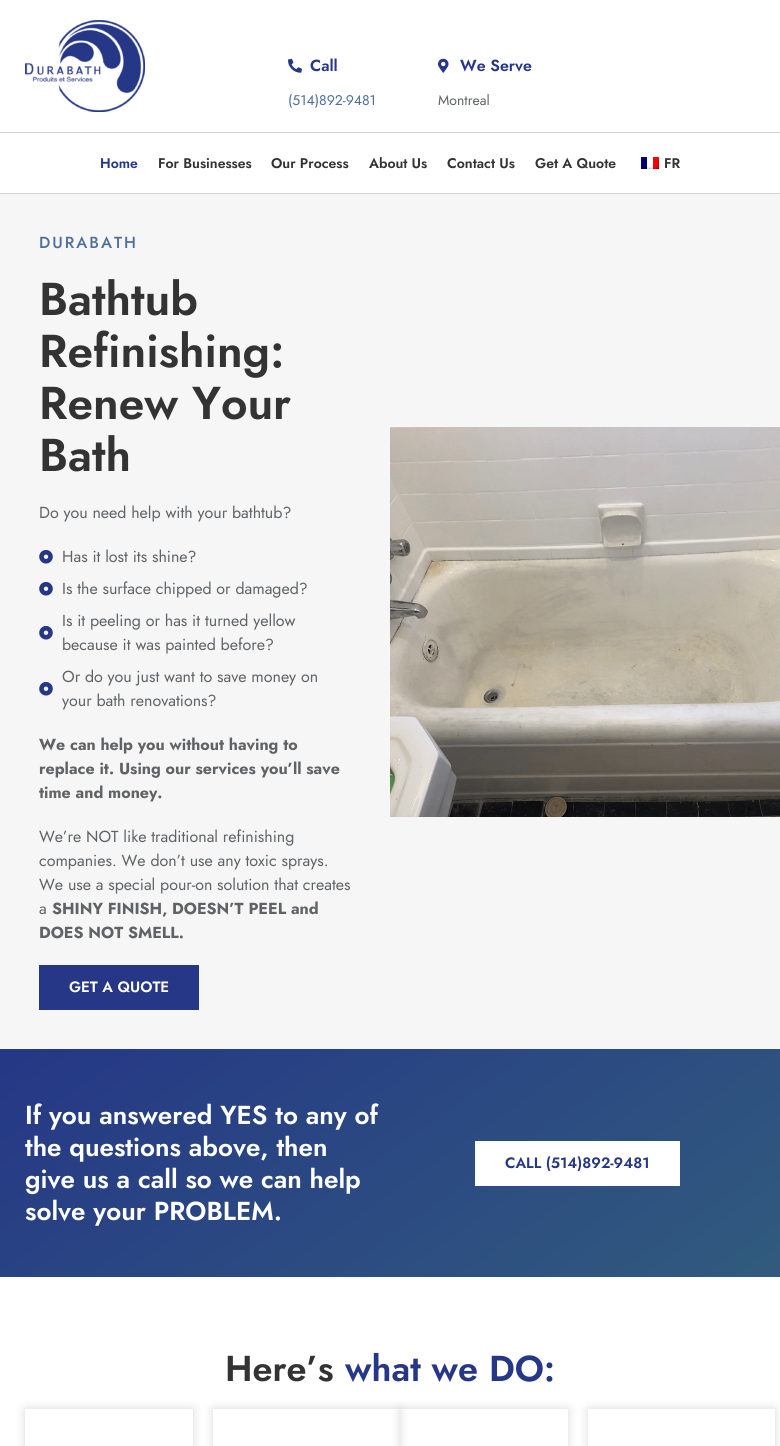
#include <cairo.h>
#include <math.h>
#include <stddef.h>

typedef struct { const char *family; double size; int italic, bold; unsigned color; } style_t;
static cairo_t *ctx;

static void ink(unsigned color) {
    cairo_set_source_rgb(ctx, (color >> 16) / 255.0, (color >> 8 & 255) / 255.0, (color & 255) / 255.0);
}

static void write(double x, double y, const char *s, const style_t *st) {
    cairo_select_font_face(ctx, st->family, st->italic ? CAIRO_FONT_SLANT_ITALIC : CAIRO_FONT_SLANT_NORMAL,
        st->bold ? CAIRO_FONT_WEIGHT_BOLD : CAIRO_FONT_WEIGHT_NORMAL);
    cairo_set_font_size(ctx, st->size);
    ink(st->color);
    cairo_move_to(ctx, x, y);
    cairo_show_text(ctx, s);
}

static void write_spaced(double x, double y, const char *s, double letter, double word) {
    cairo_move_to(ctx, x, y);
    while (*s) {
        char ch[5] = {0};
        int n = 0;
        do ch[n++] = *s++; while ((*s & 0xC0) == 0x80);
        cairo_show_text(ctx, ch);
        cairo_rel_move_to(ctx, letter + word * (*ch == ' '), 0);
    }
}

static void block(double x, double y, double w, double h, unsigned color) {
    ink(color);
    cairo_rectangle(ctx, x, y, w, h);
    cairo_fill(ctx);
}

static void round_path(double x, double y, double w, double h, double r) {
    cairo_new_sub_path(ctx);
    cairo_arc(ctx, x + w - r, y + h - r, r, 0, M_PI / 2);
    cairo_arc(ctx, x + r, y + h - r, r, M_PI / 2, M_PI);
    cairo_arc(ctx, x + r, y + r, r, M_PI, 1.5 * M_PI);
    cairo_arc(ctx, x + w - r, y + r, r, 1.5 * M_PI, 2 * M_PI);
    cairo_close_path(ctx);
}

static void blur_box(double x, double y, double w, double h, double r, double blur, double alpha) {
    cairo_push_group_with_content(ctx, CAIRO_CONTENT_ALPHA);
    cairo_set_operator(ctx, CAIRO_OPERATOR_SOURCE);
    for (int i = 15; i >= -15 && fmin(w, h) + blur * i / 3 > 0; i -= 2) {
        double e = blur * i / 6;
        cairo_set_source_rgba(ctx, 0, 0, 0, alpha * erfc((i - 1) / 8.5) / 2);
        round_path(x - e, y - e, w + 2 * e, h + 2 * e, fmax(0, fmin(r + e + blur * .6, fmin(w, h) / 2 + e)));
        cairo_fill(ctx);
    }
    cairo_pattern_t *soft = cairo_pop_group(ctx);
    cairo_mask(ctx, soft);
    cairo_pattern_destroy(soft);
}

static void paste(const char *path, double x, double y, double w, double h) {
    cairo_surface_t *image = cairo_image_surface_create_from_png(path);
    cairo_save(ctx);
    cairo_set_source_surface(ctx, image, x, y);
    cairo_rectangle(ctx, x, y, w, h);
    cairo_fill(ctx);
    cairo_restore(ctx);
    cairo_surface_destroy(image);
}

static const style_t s1 = {"Jost SemiBold", 16, 0, 0, 0x253786};
static const style_t s2 = {"Jost", 14, 0, 0, 0x4d6e9b};
static const style_t s3 = {"Jost", 14, 0, 0, 0x5f6366};
static const style_t s4 = {"Jost SemiBold", 14, 0, 0, 0x253786};
static const style_t s5 = {"Jost SemiBold", 14, 0, 0, 0x333333};
static const style_t s6 = {"Jost SemiBold", 46, 0, 0, 0x333333};
static const style_t s7 = {"Jost", 16, 0, 0, 0x5f6366};
static const style_t s8 = {"Jost", 16, 0, 1, 0x5f6366};
static const style_t s9 = {"Jost SemiBold", 15, 0, 0, 0xffffff};
static const style_t s10 = {"Jost SemiBold", 26, 0, 0, 0xffffff};
static const style_t s11 = {"Jost SemiBold", 15, 0, 0, 0x253786};
static const style_t s12 = {"Jost SemiBold", 36, 0, 0, 0x333333};
static const style_t s13 = {"Jost SemiBold", 36, 0, 0, 0x253786};

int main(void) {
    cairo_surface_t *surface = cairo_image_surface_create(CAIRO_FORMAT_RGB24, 780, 1446);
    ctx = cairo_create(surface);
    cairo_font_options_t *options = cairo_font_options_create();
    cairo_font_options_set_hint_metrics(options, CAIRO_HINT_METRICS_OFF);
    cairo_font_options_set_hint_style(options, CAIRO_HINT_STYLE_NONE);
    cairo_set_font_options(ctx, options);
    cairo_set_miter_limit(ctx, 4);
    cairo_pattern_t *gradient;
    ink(0xffffff);
    cairo_paint(ctx);
    paste("pic1.png", 25, 20, 120, 92);
    paste("pic2.png", 288, 58, 14, 15);
    write(310, 71, "Call", &s1);
    write(288, 105, "(514)892-9481", &s2);
    paste("pic3.png", 438, 58, 11, 15);
    write(460, 71, "We Serve", &s1);
    write(438, 105, "Montreal", &s3);
    block(0, 132, 780, 1, 0xd3d3d3);
    block(0, 193, 780, 1, 0xd3d3d3);
    write(100, 168, "Home", &s4);
    write(158, 168, "For Businesses", &s5);
    write(271, 168, "Our Process", &s5);
    write(369, 168, "About Us", &s5);
    write(447, 168, "Contact Us", &s5);
    write(535, 168, "Get A Quote", &s5);
    paste("pic4.png", 641, 157, 18, 12);
    write(664, 168, "FR", &s5);
    block(0, 194, 780, 855, 0xf6f6f6);
    cairo_select_font_face(ctx, "Jost Medium", CAIRO_FONT_SLANT_NORMAL, CAIRO_FONT_WEIGHT_NORMAL);
    cairo_set_font_size(ctx, 16);
    ink(0x4d6e9b);
    write_spaced(39, 248, "DURABATH", 2, 0);
    write(39, 315, "Bathtub", &s6);
    write(39, 367, "Refinishing:", &s6);
    write(39, 419, "Renew Your", &s6);
    write(39, 471, "Bath", &s6);
    write(39, 518, "Do you need help with your bathtub?", &s7);
    paste("pic5.png", 39, 550, 14, 14);
    write(62, 562, "Has it lost its shine?", &s7);
    paste("pic5.png", 39, 582, 14, 14);
    write(62, 594, "Is the surface chipped or damaged?", &s7);
    paste("pic5.png", 39, 626, 14, 14);
    write(62, 626, "Is it peeling or has it turned yellow", &s7);
    write(62, 650, "because it was painted before?", &s7);
    paste("pic5.png", 39, 682, 14, 14);
    write(62, 682, "Or do you just want to save money on", &s7);
    write(62, 706, "your bath renovations?", &s7);
    write(39, 750, "We can help you without having to", &s8);
    write(39, 774, "replace it. Using our services you’ll save", &s8);
    write(39, 798, "time and money.", &s8);
    write(39, 842, "We’re NOT like traditional refinishing", &s7);
    write(39, 866, "companies. We don’t use any toxic sprays.", &s7);
    write(39, 890, "We use a special pour-on solution that creates", &s7);
    write(39, 914, "a", &s7);
    write(52, 914, "SHINY FINISH, DOESN’T PEEL and", &s8);
    write(39, 938, "DOES NOT SMELL.", &s8);
    block(39, 965, 160, 45, 0x253786);
    write(69, 992, "GET A QUOTE", &s9);
    paste("pic6.png", 390, 427, 390, 390);
    gradient = cairo_pattern_create_linear(208, 903, 572, 1423);
    cairo_pattern_add_color_stop_rgba(gradient, 0, 0.145, 0.216, 0.525, 1);
    cairo_pattern_add_color_stop_rgba(gradient, 1, 0.192, 0.357, 0.494, 1);
    cairo_set_source(ctx, gradient);
    cairo_pattern_destroy(gradient);
    cairo_rectangle(ctx, 0, 1049, 780, 228);
    cairo_fill(ctx);
    write(25, 1124, "If you answered YES to any of", &s10);
    write(25, 1156, "the questions above, then", &s10);
    write(25, 1188, "give us a call so we can help", &s10);
    write(25, 1220, "solve your PROBLEM.", &s10);
    block(475, 1141, 205, 45, 0xffffff);
    write(505, 1168, "CALL (514)892-9481", &s11);
    write(225, 1381, "Here’s", &s12);
    write(345, 1381, "what we DO:", &s13);
    cairo_save(ctx);
    cairo_set_fill_rule(ctx, CAIRO_FILL_RULE_EVEN_ODD);
    cairo_new_path(ctx);
    cairo_move_to(ctx, 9, 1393);
    cairo_line_to(ctx, 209, 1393);
    cairo_line_to(ctx, 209, 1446);
    cairo_line_to(ctx, 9, 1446);
    cairo_close_path(ctx);
    cairo_move_to(ctx, 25, 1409);
    cairo_line_to(ctx, 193, 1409);
    cairo_line_to(ctx, 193, 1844);
    cairo_line_to(ctx, 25, 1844);
    cairo_close_path(ctx);
    cairo_clip(ctx);
    ink(0x000000);
    blur_box(25, 1409, 168, 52, 0, 5, 0.15);
    cairo_restore(ctx);
    cairo_save(ctx);
    cairo_set_fill_rule(ctx, CAIRO_FILL_RULE_EVEN_ODD);
    cairo_new_path(ctx);
    cairo_move_to(ctx, 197, 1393);
    cairo_line_to(ctx, 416, 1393);
    cairo_line_to(ctx, 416, 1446);
    cairo_line_to(ctx, 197, 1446);
    cairo_close_path(ctx);
    cairo_move_to(ctx, 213, 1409);
    cairo_line_to(ctx, 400, 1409);
    cairo_line_to(ctx, 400, 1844);
    cairo_line_to(ctx, 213, 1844);
    cairo_close_path(ctx);
    cairo_clip(ctx);
    ink(0x000000);
    blur_box(213, 1409, 187, 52, 0, 5, 0.15);
    cairo_restore(ctx);
    cairo_save(ctx);
    cairo_set_fill_rule(ctx, CAIRO_FILL_RULE_EVEN_ODD);
    cairo_new_path(ctx);
    cairo_move_to(ctx, 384, 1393);
    cairo_line_to(ctx, 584, 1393);
    cairo_line_to(ctx, 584, 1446);
    cairo_line_to(ctx, 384, 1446);
    cairo_close_path(ctx);
    cairo_move_to(ctx, 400, 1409);
    cairo_line_to(ctx, 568, 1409);
    cairo_line_to(ctx, 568, 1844);
    cairo_line_to(ctx, 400, 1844);
    cairo_close_path(ctx);
    cairo_clip(ctx);
    ink(0x000000);
    blur_box(400, 1409, 168, 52, 0, 5, 0.15);
    cairo_restore(ctx);
    cairo_save(ctx);
    cairo_set_fill_rule(ctx, CAIRO_FILL_RULE_EVEN_ODD);
    cairo_new_path(ctx);
    cairo_move_to(ctx, 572, 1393);
    cairo_line_to(ctx, 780, 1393);
    cairo_line_to(ctx, 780, 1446);
    cairo_line_to(ctx, 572, 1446);
    cairo_close_path(ctx);
    cairo_move_to(ctx, 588, 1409);
    cairo_line_to(ctx, 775, 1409);
    cairo_line_to(ctx, 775, 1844);
    cairo_line_to(ctx, 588, 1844);
    cairo_close_path(ctx);
    cairo_clip(ctx);
    ink(0x000000);
    blur_box(588, 1409, 187, 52, 0, 5, 0.15);
    cairo_restore(ctx);
    cairo_surface_write_to_png(surface, "screenshot.png");
    cairo_font_options_destroy(options);
    cairo_destroy(ctx);
    cairo_surface_destroy(surface);
    return 0;
}
